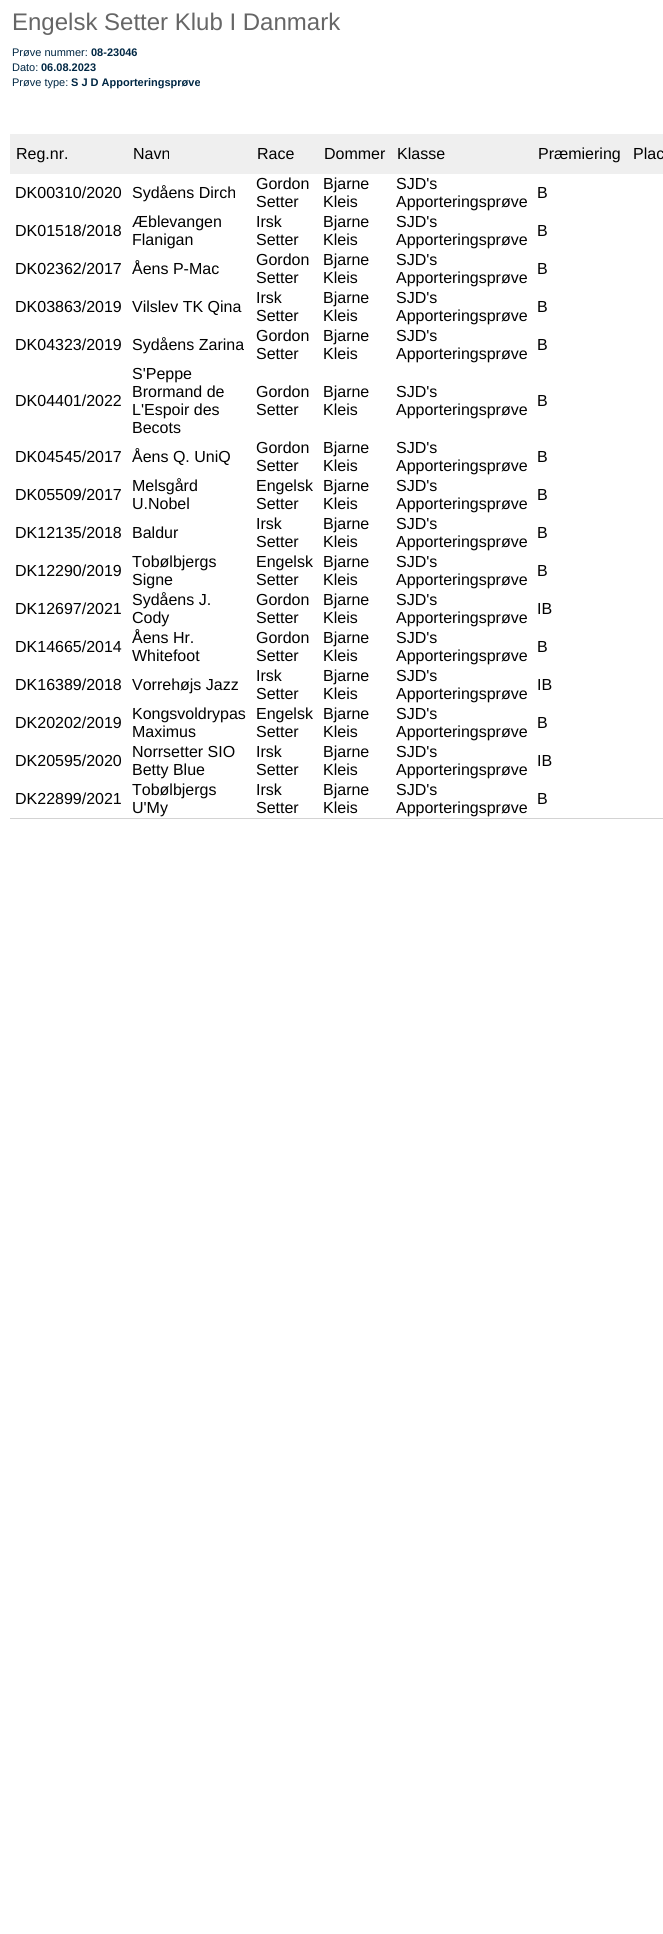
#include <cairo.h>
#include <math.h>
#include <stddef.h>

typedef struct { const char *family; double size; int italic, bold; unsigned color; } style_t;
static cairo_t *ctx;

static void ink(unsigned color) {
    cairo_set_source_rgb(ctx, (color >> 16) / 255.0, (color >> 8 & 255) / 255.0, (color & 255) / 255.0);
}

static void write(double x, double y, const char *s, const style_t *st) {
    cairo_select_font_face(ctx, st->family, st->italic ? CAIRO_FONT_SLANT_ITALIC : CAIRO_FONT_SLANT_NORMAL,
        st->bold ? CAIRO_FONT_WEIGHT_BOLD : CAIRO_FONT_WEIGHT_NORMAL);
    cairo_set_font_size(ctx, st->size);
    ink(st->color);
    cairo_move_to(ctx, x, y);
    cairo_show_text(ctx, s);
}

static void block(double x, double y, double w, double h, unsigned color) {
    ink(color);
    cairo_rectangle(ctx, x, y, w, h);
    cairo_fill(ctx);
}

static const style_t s1 = {"Liberation Sans", 24, 0, 0, 0x666666};
static const style_t s2 = {"Liberation Sans", 11, 0, 0, 0x002744};
static const style_t s3 = {"Liberation Sans", 11, 0, 1, 0x002744};
static const style_t s4 = {"Liberation Sans", 16, 0, 0, 0x000000};

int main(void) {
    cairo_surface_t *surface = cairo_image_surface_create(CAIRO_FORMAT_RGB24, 663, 1934);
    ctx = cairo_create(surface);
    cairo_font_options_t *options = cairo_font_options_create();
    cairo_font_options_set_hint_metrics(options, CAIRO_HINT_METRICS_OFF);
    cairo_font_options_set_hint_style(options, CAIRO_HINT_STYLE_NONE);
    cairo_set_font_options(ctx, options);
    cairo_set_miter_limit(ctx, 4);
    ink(0xffffff);
    cairo_paint(ctx);
    write(12, 30, "Engelsk Setter Klub I Danmark", &s1);
    write(12, 56, "Prøve nummer:", &s2);
    write(91, 56, "08-23046", &s3);
    write(12, 71, "Dato:", &s2);
    write(41, 71, "06.08.2023", &s3);
    write(12, 86, "Prøve type:", &s2);
    write(71, 86, "S J D Apporteringsprøve", &s3);
    block(10, 134, 653, 40, 0xefefef);
    write(16, 159, "Reg.nr.", &s4);
    write(133, 159, "Navn", &s4);
    write(257, 159, "Race", &s4);
    write(324, 159, "Dommer", &s4);
    write(397, 159, "Klasse", &s4);
    write(538, 159, "Præmiering", &s4);
    write(633, 159, "Plac", &s4);
    write(15, 198, "DK00310/2020", &s4);
    write(132, 198, "Sydåens Dirch", &s4);
    write(256, 189, "Gordon", &s4);
    write(256, 207, "Setter", &s4);
    write(323, 189, "Bjarne", &s4);
    write(323, 207, "Kleis", &s4);
    write(396, 189, "SJD's", &s4);
    write(396, 207, "Apporteringsprøve", &s4);
    write(537, 198, "B", &s4);
    write(15, 236, "DK01518/2018", &s4);
    write(132, 227, "Æblevangen", &s4);
    write(132, 245, "Flanigan", &s4);
    write(256, 227, "Irsk", &s4);
    write(256, 245, "Setter", &s4);
    write(323, 227, "Bjarne", &s4);
    write(323, 245, "Kleis", &s4);
    write(396, 227, "SJD's", &s4);
    write(396, 245, "Apporteringsprøve", &s4);
    write(537, 236, "B", &s4);
    write(15, 274, "DK02362/2017", &s4);
    write(132, 274, "Åens P-Mac", &s4);
    write(256, 265, "Gordon", &s4);
    write(256, 283, "Setter", &s4);
    write(323, 265, "Bjarne", &s4);
    write(323, 283, "Kleis", &s4);
    write(396, 265, "SJD's", &s4);
    write(396, 283, "Apporteringsprøve", &s4);
    write(537, 274, "B", &s4);
    write(15, 312, "DK03863/2019", &s4);
    write(132, 312, "Vilslev TK Qina", &s4);
    write(256, 303, "Irsk", &s4);
    write(256, 321, "Setter", &s4);
    write(323, 303, "Bjarne", &s4);
    write(323, 321, "Kleis", &s4);
    write(396, 303, "SJD's", &s4);
    write(396, 321, "Apporteringsprøve", &s4);
    write(537, 312, "B", &s4);
    write(15, 350, "DK04323/2019", &s4);
    write(132, 350, "Sydåens Zarina", &s4);
    write(256, 341, "Gordon", &s4);
    write(256, 359, "Setter", &s4);
    write(323, 341, "Bjarne", &s4);
    write(323, 359, "Kleis", &s4);
    write(396, 341, "SJD's", &s4);
    write(396, 359, "Apporteringsprøve", &s4);
    write(537, 350, "B", &s4);
    write(15, 406, "DK04401/2022", &s4);
    write(132, 379, "S'Peppe", &s4);
    write(132, 397, "Brormand de", &s4);
    write(132, 415, "L'Espoir des", &s4);
    write(132, 433, "Becots", &s4);
    write(256, 397, "Gordon", &s4);
    write(256, 415, "Setter", &s4);
    write(323, 397, "Bjarne", &s4);
    write(323, 415, "Kleis", &s4);
    write(396, 397, "SJD's", &s4);
    write(396, 415, "Apporteringsprøve", &s4);
    write(537, 406, "B", &s4);
    write(15, 462, "DK04545/2017", &s4);
    write(132, 462, "Åens Q. UniQ", &s4);
    write(256, 453, "Gordon", &s4);
    write(256, 471, "Setter", &s4);
    write(323, 453, "Bjarne", &s4);
    write(323, 471, "Kleis", &s4);
    write(396, 453, "SJD's", &s4);
    write(396, 471, "Apporteringsprøve", &s4);
    write(537, 462, "B", &s4);
    write(15, 500, "DK05509/2017", &s4);
    write(132, 491, "Melsgård", &s4);
    write(132, 509, "U.Nobel", &s4);
    write(256, 491, "Engelsk", &s4);
    write(256, 509, "Setter", &s4);
    write(323, 491, "Bjarne", &s4);
    write(323, 509, "Kleis", &s4);
    write(396, 491, "SJD's", &s4);
    write(396, 509, "Apporteringsprøve", &s4);
    write(537, 500, "B", &s4);
    write(15, 538, "DK12135/2018", &s4);
    write(132, 538, "Baldur", &s4);
    write(256, 529, "Irsk", &s4);
    write(256, 547, "Setter", &s4);
    write(323, 529, "Bjarne", &s4);
    write(323, 547, "Kleis", &s4);
    write(396, 529, "SJD's", &s4);
    write(396, 547, "Apporteringsprøve", &s4);
    write(537, 538, "B", &s4);
    write(15, 576, "DK12290/2019", &s4);
    write(132, 567, "Tobølbjergs", &s4);
    write(132, 585, "Signe", &s4);
    write(256, 567, "Engelsk", &s4);
    write(256, 585, "Setter", &s4);
    write(323, 567, "Bjarne", &s4);
    write(323, 585, "Kleis", &s4);
    write(396, 567, "SJD's", &s4);
    write(396, 585, "Apporteringsprøve", &s4);
    write(537, 576, "B", &s4);
    write(15, 614, "DK12697/2021", &s4);
    write(132, 605, "Sydåens J.", &s4);
    write(132, 623, "Cody", &s4);
    write(256, 605, "Gordon", &s4);
    write(256, 623, "Setter", &s4);
    write(323, 605, "Bjarne", &s4);
    write(323, 623, "Kleis", &s4);
    write(396, 605, "SJD's", &s4);
    write(396, 623, "Apporteringsprøve", &s4);
    write(537, 614, "IB", &s4);
    write(15, 652, "DK14665/2014", &s4);
    write(132, 643, "Åens Hr.", &s4);
    write(132, 661, "Whitefoot", &s4);
    write(256, 643, "Gordon", &s4);
    write(256, 661, "Setter", &s4);
    write(323, 643, "Bjarne", &s4);
    write(323, 661, "Kleis", &s4);
    write(396, 643, "SJD's", &s4);
    write(396, 661, "Apporteringsprøve", &s4);
    write(537, 652, "B", &s4);
    write(15, 690, "DK16389/2018", &s4);
    write(132, 690, "Vorrehøjs Jazz", &s4);
    write(256, 681, "Irsk", &s4);
    write(256, 699, "Setter", &s4);
    write(323, 681, "Bjarne", &s4);
    write(323, 699, "Kleis", &s4);
    write(396, 681, "SJD's", &s4);
    write(396, 699, "Apporteringsprøve", &s4);
    write(537, 690, "IB", &s4);
    write(15, 728, "DK20202/2019", &s4);
    write(132, 719, "Kongsvoldrypas", &s4);
    write(132, 737, "Maximus", &s4);
    write(256, 719, "Engelsk", &s4);
    write(256, 737, "Setter", &s4);
    write(323, 719, "Bjarne", &s4);
    write(323, 737, "Kleis", &s4);
    write(396, 719, "SJD's", &s4);
    write(396, 737, "Apporteringsprøve", &s4);
    write(537, 728, "B", &s4);
    write(15, 766, "DK20595/2020", &s4);
    write(132, 757, "Norrsetter SIO", &s4);
    write(132, 775, "Betty Blue", &s4);
    write(256, 757, "Irsk", &s4);
    write(256, 775, "Setter", &s4);
    write(323, 757, "Bjarne", &s4);
    write(323, 775, "Kleis", &s4);
    write(396, 757, "SJD's", &s4);
    write(396, 775, "Apporteringsprøve", &s4);
    write(537, 766, "IB", &s4);
    write(15, 804, "DK22899/2021", &s4);
    write(132, 795, "Tobølbjergs", &s4);
    write(132, 813, "U'My", &s4);
    write(256, 795, "Irsk", &s4);
    write(256, 813, "Setter", &s4);
    write(323, 795, "Bjarne", &s4);
    write(323, 813, "Kleis", &s4);
    write(396, 795, "SJD's", &s4);
    write(396, 813, "Apporteringsprøve", &s4);
    write(537, 804, "B", &s4);
    block(10, 818, 653, 1, 0xd3d3d3);
    cairo_surface_write_to_png(surface, "screenshot.png");
    cairo_font_options_destroy(options);
    cairo_destroy(ctx);
    cairo_surface_destroy(surface);
    return 0;
}
